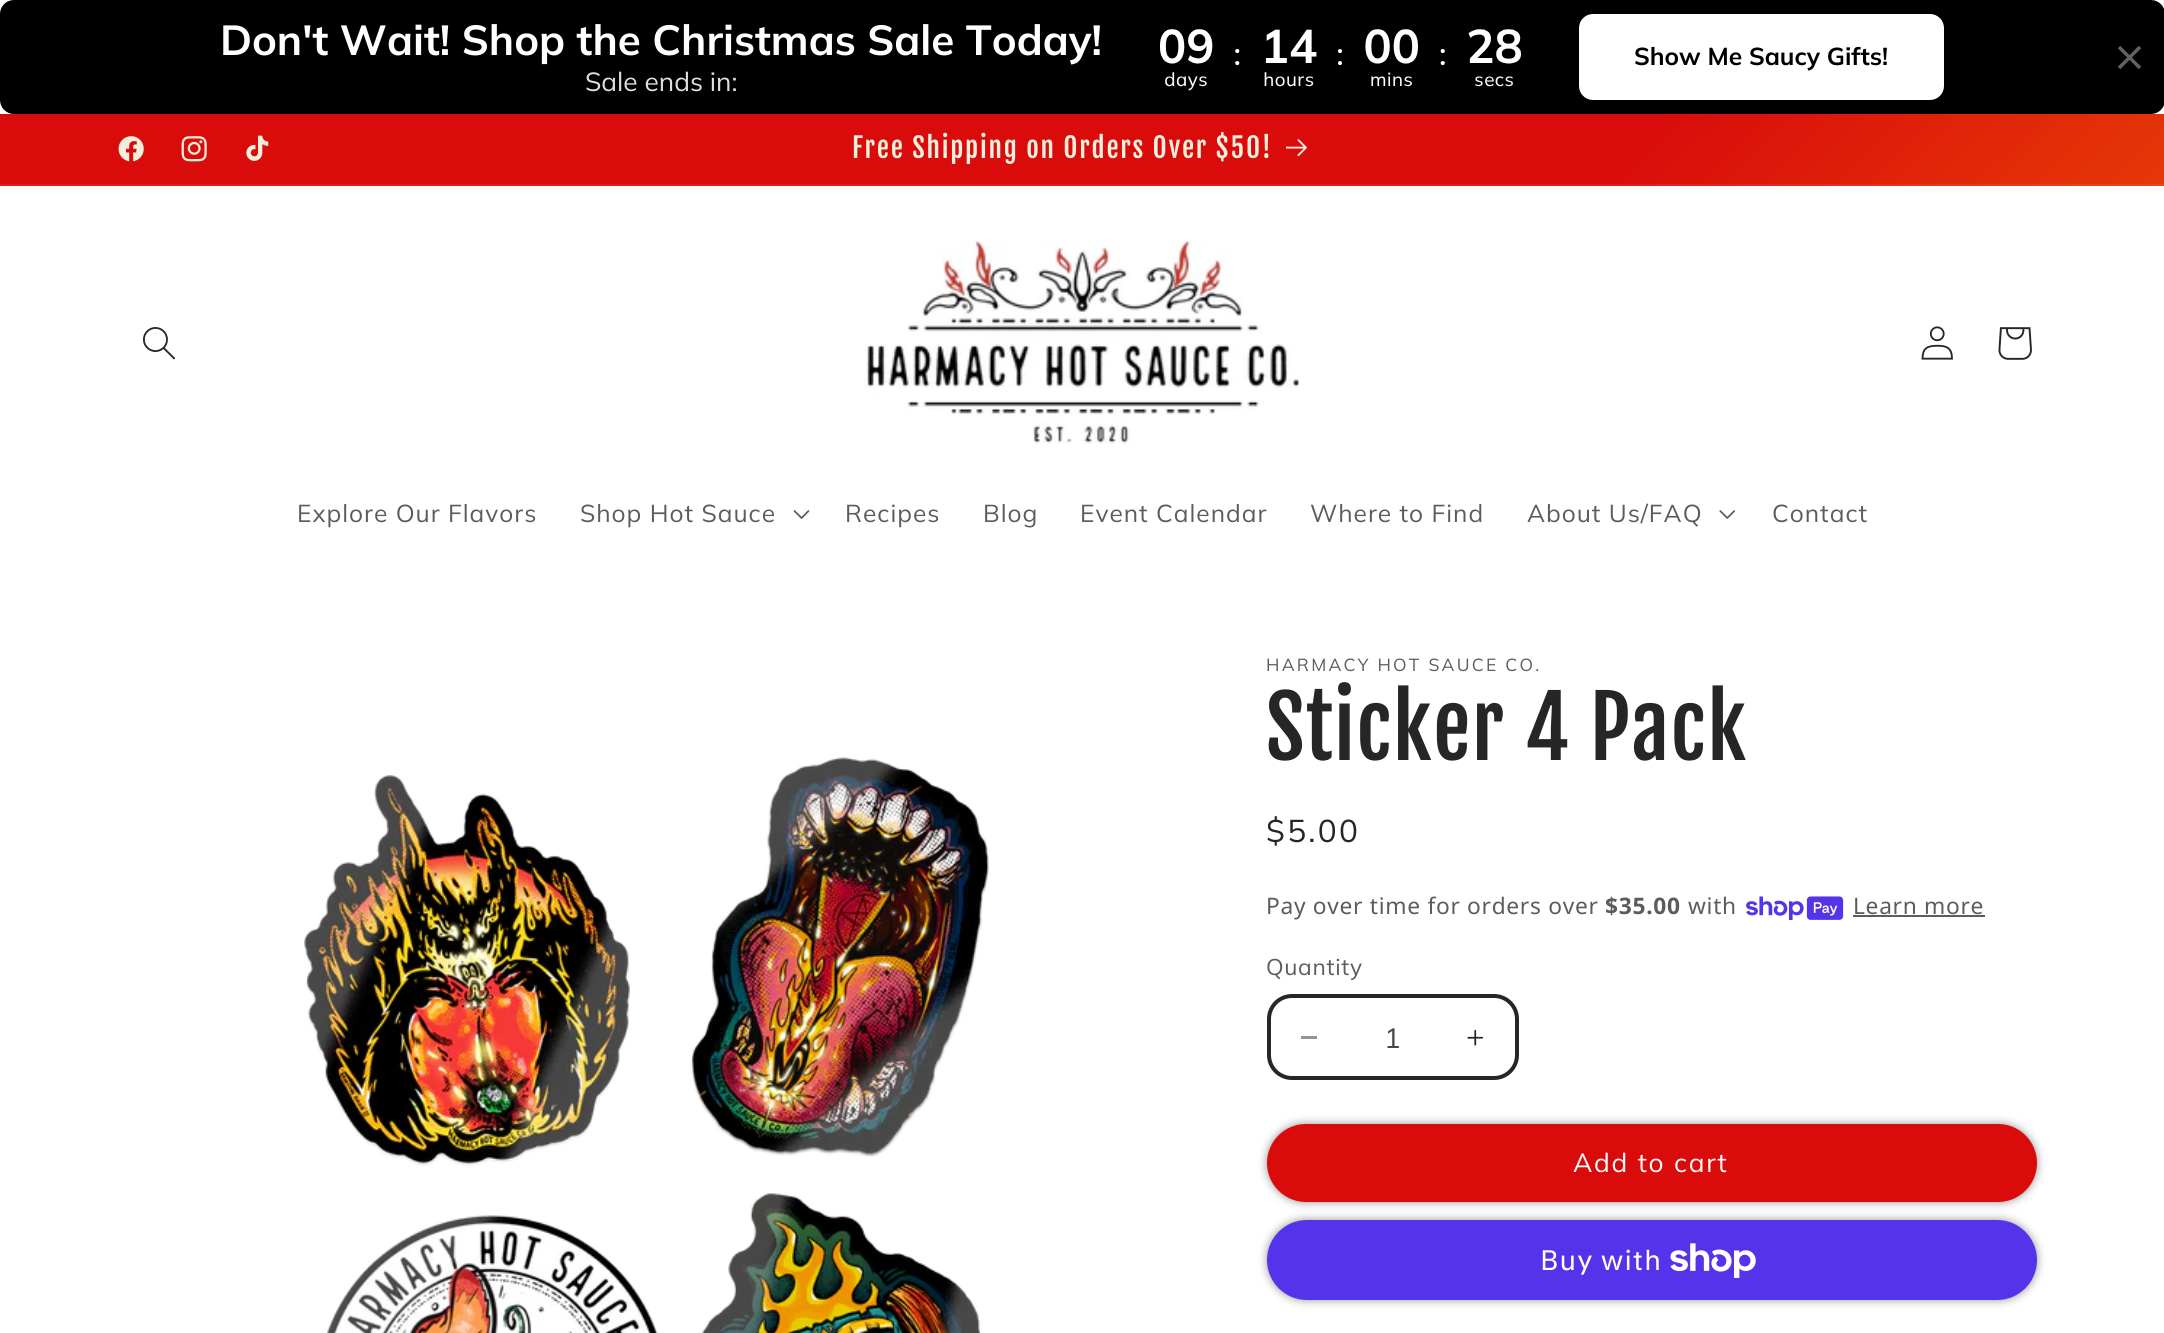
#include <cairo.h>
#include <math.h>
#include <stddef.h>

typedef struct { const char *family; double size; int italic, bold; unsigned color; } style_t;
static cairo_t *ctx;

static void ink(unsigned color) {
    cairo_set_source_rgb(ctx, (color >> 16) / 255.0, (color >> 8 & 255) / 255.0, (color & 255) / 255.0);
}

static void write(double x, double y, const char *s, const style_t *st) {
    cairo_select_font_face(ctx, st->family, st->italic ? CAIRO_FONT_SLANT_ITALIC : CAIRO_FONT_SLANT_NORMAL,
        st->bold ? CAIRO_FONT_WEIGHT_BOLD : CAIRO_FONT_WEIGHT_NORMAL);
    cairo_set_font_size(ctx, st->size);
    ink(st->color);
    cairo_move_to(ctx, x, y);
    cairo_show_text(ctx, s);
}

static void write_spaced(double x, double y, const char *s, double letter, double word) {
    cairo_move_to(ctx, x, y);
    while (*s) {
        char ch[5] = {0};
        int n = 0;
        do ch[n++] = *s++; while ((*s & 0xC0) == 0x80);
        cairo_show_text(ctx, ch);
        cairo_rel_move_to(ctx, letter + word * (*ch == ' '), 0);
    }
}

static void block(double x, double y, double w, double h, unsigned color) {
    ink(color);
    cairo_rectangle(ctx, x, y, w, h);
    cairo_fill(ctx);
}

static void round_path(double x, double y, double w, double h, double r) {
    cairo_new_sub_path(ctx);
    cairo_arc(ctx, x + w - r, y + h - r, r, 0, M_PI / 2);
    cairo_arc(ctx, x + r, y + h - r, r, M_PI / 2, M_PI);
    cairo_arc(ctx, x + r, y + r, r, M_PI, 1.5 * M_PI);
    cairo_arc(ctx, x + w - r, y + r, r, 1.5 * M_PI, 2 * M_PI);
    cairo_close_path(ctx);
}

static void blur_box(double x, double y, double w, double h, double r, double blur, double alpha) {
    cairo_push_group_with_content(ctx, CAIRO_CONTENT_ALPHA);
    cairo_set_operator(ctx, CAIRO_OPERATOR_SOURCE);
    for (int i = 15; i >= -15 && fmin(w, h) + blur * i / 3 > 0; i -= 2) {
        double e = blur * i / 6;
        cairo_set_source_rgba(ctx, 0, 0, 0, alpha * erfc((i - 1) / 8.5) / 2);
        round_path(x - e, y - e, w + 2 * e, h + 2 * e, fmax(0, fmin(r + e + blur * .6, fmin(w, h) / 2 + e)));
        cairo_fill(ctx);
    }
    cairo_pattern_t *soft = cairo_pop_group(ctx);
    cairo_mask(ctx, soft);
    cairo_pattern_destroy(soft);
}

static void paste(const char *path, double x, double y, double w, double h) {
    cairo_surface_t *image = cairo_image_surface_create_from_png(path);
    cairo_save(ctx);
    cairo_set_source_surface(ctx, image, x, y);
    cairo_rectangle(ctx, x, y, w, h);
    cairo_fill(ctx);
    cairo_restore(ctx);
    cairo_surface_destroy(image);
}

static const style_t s1 = {"Muli", 42, 0, 1, 0xffffff};
static const style_t s2 = {"Muli", 26.25, 0, 0, 0xe0e0e0};
static const style_t s3 = {"Muli", 24.5, 0, 1, 0x000000};
static const style_t s4 = {"Muli", 28, 0, 0, 0x474747};

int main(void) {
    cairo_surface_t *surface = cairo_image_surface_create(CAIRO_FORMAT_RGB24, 2164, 1333);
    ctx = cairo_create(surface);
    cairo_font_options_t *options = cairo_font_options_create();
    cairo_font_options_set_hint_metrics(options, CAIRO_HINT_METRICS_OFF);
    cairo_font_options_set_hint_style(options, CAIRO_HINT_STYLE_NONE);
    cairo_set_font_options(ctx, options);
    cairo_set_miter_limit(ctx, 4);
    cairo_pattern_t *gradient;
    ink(0xffffff);
    cairo_paint(ctx);
    ink(0x000000);
    round_path(0, 0, 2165, 114, 14);
    cairo_fill(ctx);
    write(220, 55, "Don't Wait! Shop the Christmas Sale Today!", &s1);
    write(585, 91, "Sale ends in:", &s2);
    paste("pic1.png", 1160, 29, 361, 62);
    ink(0xffffff);
    round_path(1579, 14, 365, 86, 14);
    cairo_fill(ctx);
    write(1634, 65, "Show Me Saucy Gifts!", &s3);
    cairo_new_path(ctx);
    cairo_move_to(ctx, 2140, 47);
    cairo_line_to(ctx, 2119, 68);
    cairo_move_to(ctx, 2140, 68);
    cairo_line_to(ctx, 2119, 47);
    ink(0x616161);
    cairo_set_line_width(ctx, 3.5);
    cairo_stroke(ctx);
    gradient = cairo_pattern_create_linear(227, -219, 1938, 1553);
    cairo_pattern_add_color_stop_rgba(gradient, 0.5, 0.851, 0.043, 0.043, 1);
    cairo_pattern_add_color_stop_rgba(gradient, 1, 1, 0.58, 0, 1);
    cairo_set_source(ctx, gradient);
    cairo_pattern_destroy(gradient);
    cairo_rectangle(ctx, 0, 114, 2164, 70);
    cairo_fill(ctx);
    gradient = cairo_pattern_create_linear(227, -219, 1938, 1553);
    cairo_pattern_add_color_stop_rgba(gradient, 0.5, 0.859, 0.114, 0.11, 1);
    cairo_pattern_add_color_stop_rgba(gradient, 1, 0.996, 0.608, 0.071, 1);
    cairo_set_source(ctx, gradient);
    cairo_pattern_destroy(gradient);
    cairo_rectangle(ctx, 0, 184, 2164, 2);
    cairo_fill(ctx);
    paste("pic2.png", 118, 136, 26, 26);
    paste("pic3.png", 181, 136, 26, 26);
    paste("pic4.png", 246, 135, 23, 26);
    cairo_select_font_face(ctx, "Fjalla One", CAIRO_FONT_SLANT_NORMAL, CAIRO_FONT_WEIGHT_NORMAL);
    cairo_set_font_size(ctx, 27.25);
    ink(0xf2efdd);
    write_spaced(852, 158, "Free Shipping on Orders Over $50!", 1.75, 0);
    paste("pic5.png", 1286, 139, 21, 17);
    paste("pic6.png", 143, 327, 32, 33);
    paste("pic7.png", 864, 240, 435, 204);
    paste("pic8.png", 1921, 326, 32, 34);
    paste("pic9.png", 1998, 327, 34, 33);
    cairo_select_font_face(ctx, "Muli", CAIRO_FONT_SLANT_NORMAL, CAIRO_FONT_WEIGHT_NORMAL);
    cairo_set_font_size(ctx, 24.5);
    ink(0x5c5c5c);
    write_spaced(297, 522, "Explore Our Flavors", 1, 0);
    write_spaced(580, 522, "Shop Hot Sauce", 1, 0);
    paste("pic10.png", 793, 510, 17, 9);
    write_spaced(845, 522, "Recipes", 1, 0);
    write_spaced(983, 522, "Blog", 1, 0);
    write_spaced(1080, 522, "Event Calendar", 1, 0);
    write_spaced(1310, 522, "Where to Find", 1, 0);
    write_spaced(1527, 522, "About Us/FAQ", 1, 0);
    paste("pic11.png", 1719, 510, 16, 9);
    write_spaced(1772, 522, "Contact", 1, 0);
    paste("pic12.png", 304, 757, 685, 576);
    cairo_set_font_size(ctx, 17.5);
    write_spaced(1266, 671, "HARMACY HOT SAUCE CO.", 2.25, 0);
    cairo_select_font_face(ctx, "Fjalla One", CAIRO_FONT_SLANT_NORMAL, CAIRO_FONT_WEIGHT_NORMAL);
    cairo_set_font_size(ctx, 84);
    ink(0x262626);
    write_spaced(1266, 760, "Sticker 4 Pack", 1.25, 0);
    cairo_select_font_face(ctx, "Muli", CAIRO_FONT_SLANT_NORMAL, CAIRO_FONT_WEIGHT_NORMAL);
    cairo_set_font_size(ctx, 31.5);
    write_spaced(1266, 842, "$5.00", 2.25, 0);
    cairo_select_font_face(ctx, "Noto Sans", CAIRO_FONT_SLANT_NORMAL, CAIRO_FONT_WEIGHT_NORMAL);
    cairo_set_font_size(ctx, 22.75);
    ink(0x5c5c5c);
    write_spaced(1266, 914, "Pay over time for orders over", 0.7, 0);
    cairo_select_font_face(ctx, "Noto Sans", CAIRO_FONT_SLANT_NORMAL, CAIRO_FONT_WEIGHT_BOLD);
    write_spaced(1605, 914, "$35.00", 0.7, 0);
    cairo_select_font_face(ctx, "Noto Sans", CAIRO_FONT_SLANT_NORMAL, CAIRO_FONT_WEIGHT_NORMAL);
    write_spaced(1688, 914, "with", 0.7, 0);
    paste("pic13.png", 1746, 896, 98, 24);
    write_spaced(1853, 914, "Learn more", 0.7, 0);
    block(1853, 915, 132, 2, 0x5c5c5c);
    cairo_select_font_face(ctx, "Muli", CAIRO_FONT_SLANT_NORMAL, CAIRO_FONT_WEIGHT_NORMAL);
    write_spaced(1266, 975, "Quantity", 0.7, 0);
    block(1301, 1036, 16, 3, 0x939393);
    paste("pic14.png", 1467, 1029, 17, 17);
    round_path(1269, 996, 248, 82, 23);
    ink(0x262626);
    cairo_set_line_width(ctx, 4);
    cairo_stroke(ctx);
    write(1384, 1048, "1", &s4);
    ink(0x262626);
    blur_box(1267, 1124, 770, 78, 39, 4.5, 0.5);
    ink(0xd90b0b);
    round_path(1267, 1124, 770, 78, 39);
    cairo_fill(ctx);
    cairo_set_font_size(ctx, 26.25);
    ink(0xffffff);
    write_spaced(1573, 1172, "Add to cart", 1.75, 0);
    ink(0x262626);
    blur_box(1267, 1220, 770, 80, 40, 4.5, 0.5);
    ink(0x5433eb);
    round_path(1267, 1220, 770, 80, 40);
    cairo_fill(ctx);
    cairo_select_font_face(ctx, "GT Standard", CAIRO_FONT_SLANT_NORMAL, CAIRO_FONT_WEIGHT_NORMAL);
    cairo_set_font_size(ctx, 28);
    ink(0xffffff);
    write_spaced(1540, 1270, "Buy with", 1, 0);
    paste("pic15.png", 1670, 1243, 86, 35);
    cairo_surface_write_to_png(surface, "screenshot.png");
    cairo_font_options_destroy(options);
    cairo_destroy(ctx);
    cairo_surface_destroy(surface);
    return 0;
}
